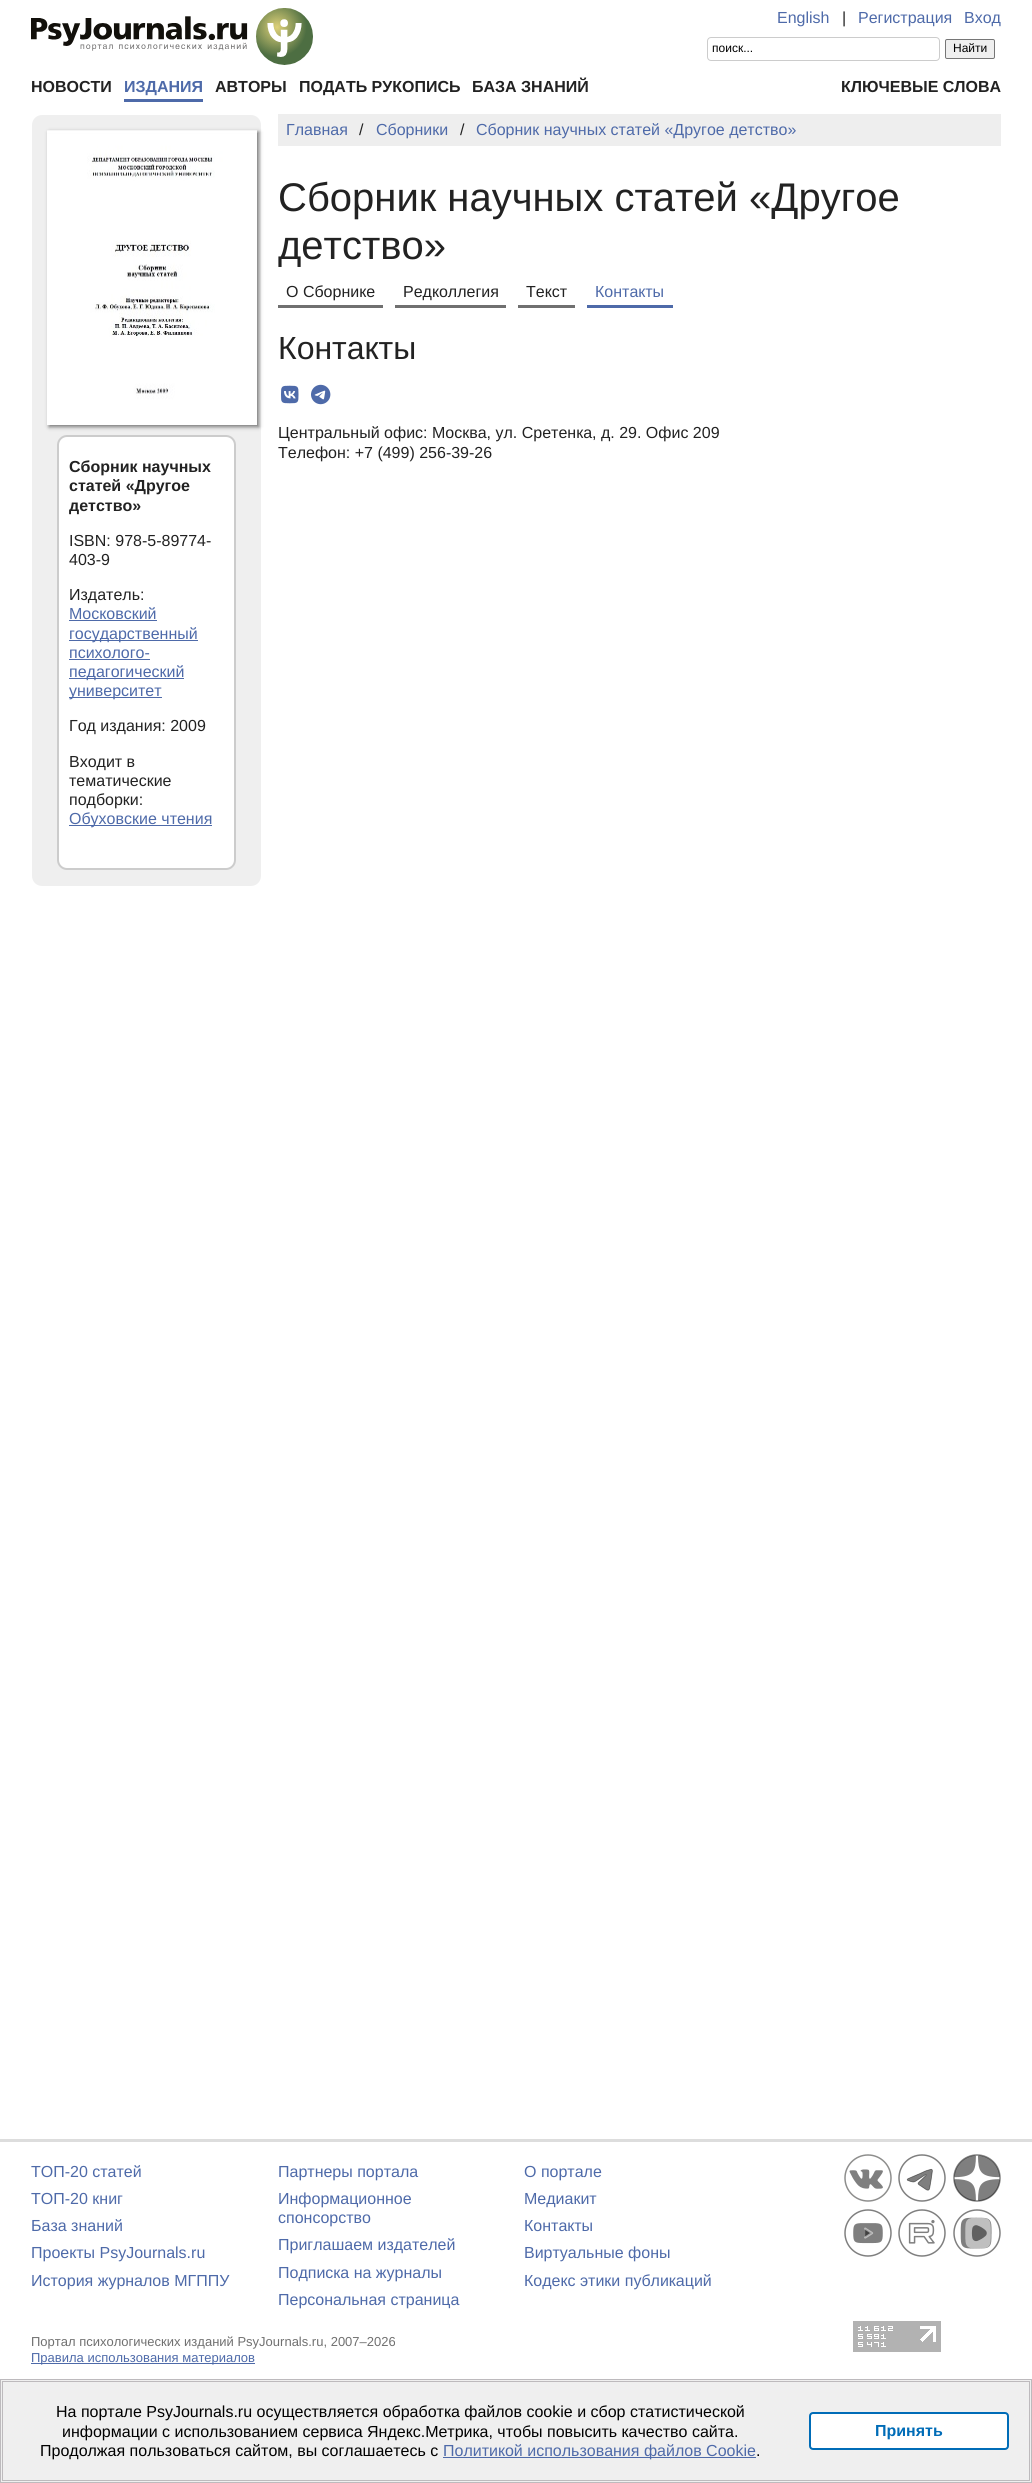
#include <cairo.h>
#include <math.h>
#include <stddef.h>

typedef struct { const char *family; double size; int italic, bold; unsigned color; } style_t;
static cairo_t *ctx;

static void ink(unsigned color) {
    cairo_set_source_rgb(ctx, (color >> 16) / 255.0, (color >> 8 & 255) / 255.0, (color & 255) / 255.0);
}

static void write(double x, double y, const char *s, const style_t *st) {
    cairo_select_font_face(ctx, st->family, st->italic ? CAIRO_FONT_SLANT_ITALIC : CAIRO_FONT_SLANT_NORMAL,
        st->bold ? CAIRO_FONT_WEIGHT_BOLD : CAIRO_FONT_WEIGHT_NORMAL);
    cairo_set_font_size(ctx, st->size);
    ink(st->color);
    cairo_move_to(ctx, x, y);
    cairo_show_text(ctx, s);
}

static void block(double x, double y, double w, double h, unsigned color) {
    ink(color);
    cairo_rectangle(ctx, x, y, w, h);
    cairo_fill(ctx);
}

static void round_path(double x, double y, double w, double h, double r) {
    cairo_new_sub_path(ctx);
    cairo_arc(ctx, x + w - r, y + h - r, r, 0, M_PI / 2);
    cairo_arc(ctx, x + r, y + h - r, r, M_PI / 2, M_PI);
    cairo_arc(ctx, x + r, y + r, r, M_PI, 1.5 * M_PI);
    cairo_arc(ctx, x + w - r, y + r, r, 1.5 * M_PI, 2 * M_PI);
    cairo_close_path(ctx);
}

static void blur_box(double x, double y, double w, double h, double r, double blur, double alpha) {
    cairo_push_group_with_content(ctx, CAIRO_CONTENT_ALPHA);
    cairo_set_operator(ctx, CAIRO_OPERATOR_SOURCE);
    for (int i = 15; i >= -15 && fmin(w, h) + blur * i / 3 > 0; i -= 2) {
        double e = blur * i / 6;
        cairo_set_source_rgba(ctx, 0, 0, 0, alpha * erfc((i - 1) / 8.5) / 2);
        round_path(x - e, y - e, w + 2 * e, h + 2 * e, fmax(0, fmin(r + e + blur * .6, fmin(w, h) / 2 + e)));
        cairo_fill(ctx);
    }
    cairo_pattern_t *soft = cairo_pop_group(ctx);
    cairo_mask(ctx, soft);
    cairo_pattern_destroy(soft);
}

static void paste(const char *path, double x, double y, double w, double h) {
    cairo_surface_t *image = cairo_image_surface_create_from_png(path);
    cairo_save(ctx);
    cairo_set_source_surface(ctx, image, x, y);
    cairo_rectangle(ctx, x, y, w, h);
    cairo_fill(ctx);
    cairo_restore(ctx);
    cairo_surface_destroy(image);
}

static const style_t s1 = {"Liberation Sans", 16, 0, 0, 0x4e6aa9};
static const style_t s2 = {"Liberation Sans", 16, 0, 0, 0x222222};
static const style_t s3 = {"Liberation Sans", 12, 0, 0, 0x000000};
static const style_t s4 = {"Liberation Sans", 16, 0, 1, 0x222222};
static const style_t s5 = {"Liberation Sans", 16, 0, 1, 0x4e6aa9};
static const style_t s6 = {"Liberation Sans", 40, 0, 0, 0x222222};
static const style_t s7 = {"Liberation Sans", 32, 0, 0, 0x222222};
static const style_t s8 = {"Liberation Sans", 13, 0, 0, 0x707070};
static const style_t s9 = {"Liberation Sans", 13, 0, 0, 0x4e6aa9};
static const style_t s10 = {"Liberation Sans", 16, 0, 0, 0x000000};
static const style_t s11 = {"Liberation Sans", 16, 0, 1, 0x006cb7};

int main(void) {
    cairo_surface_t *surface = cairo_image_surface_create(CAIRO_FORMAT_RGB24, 1032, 2483);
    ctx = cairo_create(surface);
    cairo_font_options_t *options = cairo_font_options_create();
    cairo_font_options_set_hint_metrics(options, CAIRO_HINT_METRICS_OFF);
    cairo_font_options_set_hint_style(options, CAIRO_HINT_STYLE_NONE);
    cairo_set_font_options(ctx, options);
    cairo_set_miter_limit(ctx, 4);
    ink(0xffffff);
    cairo_paint(ctx);
    paste("pic1.png", 31, 8, 282, 57);
    write(777, 23, "English", &s1);
    write(842, 23, "|", &s2);
    write(858, 23, "Регистрация", &s1);
    write(964, 23, "Вход", &s1);
    round_path(707.5, 37.5, 232, 23, 3.5);
    ink(0xcccccc);
    cairo_set_line_width(ctx, 1);
    cairo_stroke(ctx);
    write(712, 52, "поиск...", &s3);
    ink(0xefefef);
    round_path(945.5, 39.5, 49, 19, 1.5);
    cairo_fill_preserve(ctx);
    ink(0x767676);
    cairo_stroke(ctx);
    write(953, 52, "Найти", &s3);
    write(31, 92, "НОВОСТИ", &s4);
    block(124, 99, 79, 3, 0x4e6aa9);
    write(124, 92, "ИЗДАНИЯ", &s5);
    write(215, 92, "АВТОРЫ", &s4);
    write(299, 92, "ПОДАТЬ РУКОПИСЬ", &s4);
    write(472, 92, "БАЗА ЗНАНИЙ", &s4);
    write(841, 92, "КЛЮЧЕВЫЕ СЛОВА", &s4);
    block(278, 114, 723, 32, 0xeeeeee);
    write(286, 135, "Главная", &s1);
    write(359, 135, "/", &s2);
    write(376, 135, "Сборники", &s1);
    write(460, 135, "/", &s2);
    write(476, 135, "Сборник научных статей «Другое детство»", &s1);
    write(278, 211, "Сборник научных статей «Другое", &s6);
    write(278, 259, "детство»", &s6);
    block(278, 305, 105, 3, 0x707070);
    write(286, 297, "О Сборнике", &s2);
    block(395, 305, 111, 3, 0x707070);
    write(403, 297, "Редколлегия", &s2);
    block(518, 305, 57, 3, 0x707070);
    write(526, 297, "Текст", &s2);
    block(587, 305, 86, 3, 0x4e6aa9);
    write(595, 297, "Контакты", &s1);
    write(278, 359, "Контакты", &s7);
    paste("pic2.png", 281, 385, 18, 19);
    paste("pic3.png", 311, 384, 20, 21);
    write(278, 438, "Центральный офис: Москва, ул. Сретенка, д. 29. Офис 209", &s2);
    write(278, 458, "Телефон: +7 (499) 256-39-26", &s2);
    ink(0xefefef);
    round_path(32, 115, 229, 771, 10);
    cairo_fill(ctx);
    ink(0x000000);
    blur_box(49, 132, 210, 295, 0, 2, 0.5);
    paste("pic4.png", 47, 130, 210, 295);
    ink(0xffffff);
    round_path(58, 436, 177, 433, 9);
    cairo_fill_preserve(ctx);
    ink(0xcccccc);
    cairo_set_line_width(ctx, 2);
    cairo_stroke(ctx);
    write(69, 472, "Сборник научных", &s4);
    write(69, 491, "статей «Другое", &s4);
    write(69, 511, "детство»", &s4);
    write(69, 546, "ISBN: 978-5-89774-", &s2);
    write(69, 565, "403-9", &s2);
    write(69, 600, "Издатель:", &s2);
    write(69, 619, "Московский", &s1);
    block(69, 620, 88, 1, 0x4e6aa9);
    block(69, 640, 129, 1, 0x4e6aa9);
    write(69, 639, "государственный", &s1);
    write(69, 658, "психолого-", &s1);
    block(69, 659, 81, 1, 0x4e6aa9);
    block(69, 678, 115, 1, 0x4e6aa9);
    write(69, 677, "педагогический", &s1);
    block(69, 697, 93, 1, 0x4e6aa9);
    write(69, 696, "университет", &s1);
    write(69, 731, "Год издания: 2009", &s2);
    write(69, 767, "Входит в", &s2);
    write(69, 786, "тематические", &s2);
    write(69, 805, "подборки:", &s2);
    block(69, 825, 143, 1, 0x4e6aa9);
    write(69, 824, "Обуховские чтения", &s1);
    block(0, 2139, 1032, 3, 0xdddddd);
    write(31, 2177, "ТОП-20 статей", &s1);
    write(31, 2204, "ТОП-20 книг", &s1);
    write(31, 2231, "База знаний", &s1);
    write(31, 2258, "Проекты PsyJournals.ru", &s1);
    write(31, 2286, "История журналов МГППУ", &s1);
    write(278, 2177, "Партнеры портала", &s1);
    write(278, 2204, "Информационное", &s1);
    write(278, 2223, "спонсорство", &s1);
    write(278, 2250, "Приглашаем издателей", &s1);
    write(278, 2278, "Подписка на журналы", &s1);
    write(278, 2305, "Персональная страница", &s1);
    write(524, 2177, "О портале", &s1);
    write(524, 2204, "Медиакит", &s1);
    write(524, 2231, "Контакты", &s1);
    write(524, 2258, "Виртуальные фоны", &s1);
    write(524, 2286, "Кодекс этики публикаций", &s1);
    paste("pic5.png", 844, 2154, 48, 48);
    paste("pic6.png", 898, 2154, 48, 48);
    paste("pic7.png", 953, 2154, 48, 48);
    paste("pic8.png", 844, 2209, 48, 48);
    paste("pic9.png", 898, 2209, 48, 48);
    paste("pic10.png", 953, 2209, 48, 48);
    write(31, 2346, "Портал психологических изданий PsyJournals.ru, 2007–2026", &s8);
    block(31, 2363, 224, 1, 0x4e6aa9);
    write(31, 2362, "Правила использования материалов", &s9);
    paste("pic11.png", 853, 2321, 88, 31);
    ink(0xefefef);
    cairo_rectangle(ctx, 0.5, 2379.5, 1031, 103);
    cairo_fill_preserve(ctx);
    ink(0xbdbabd);
    cairo_set_line_width(ctx, 1);
    cairo_stroke(ctx);
    cairo_rectangle(ctx, 2.5, 2381.5, 1027, 99);
    cairo_stroke(ctx);
    write(56, 2417, "На портале PsyJournals.ru осуществляется обработка файлов cookie и сбор статистической", &s10);
    write(62, 2437, "информации с использованием сервиса Яндекс.Метрика, чтобы повысить качество сайта.", &s10);
    write(40, 2456, "Продолжая пользоваться сайтом, вы соглашаетесь с", &s10);
    block(443, 2457, 313, 1, 0x4e6aa9);
    write(443, 2456, "Политикой использования файлов Cookie", &s1);
    write(756, 2456, ".", &s10);
    ink(0xffffff);
    round_path(810, 2413, 198, 36, 3);
    cairo_fill_preserve(ctx);
    ink(0x006cb7);
    cairo_set_line_width(ctx, 2);
    cairo_stroke(ctx);
    write(875, 2436, "Принять", &s11);
    cairo_surface_write_to_png(surface, "screenshot.png");
    cairo_font_options_destroy(options);
    cairo_destroy(ctx);
    cairo_surface_destroy(surface);
    return 0;
}
